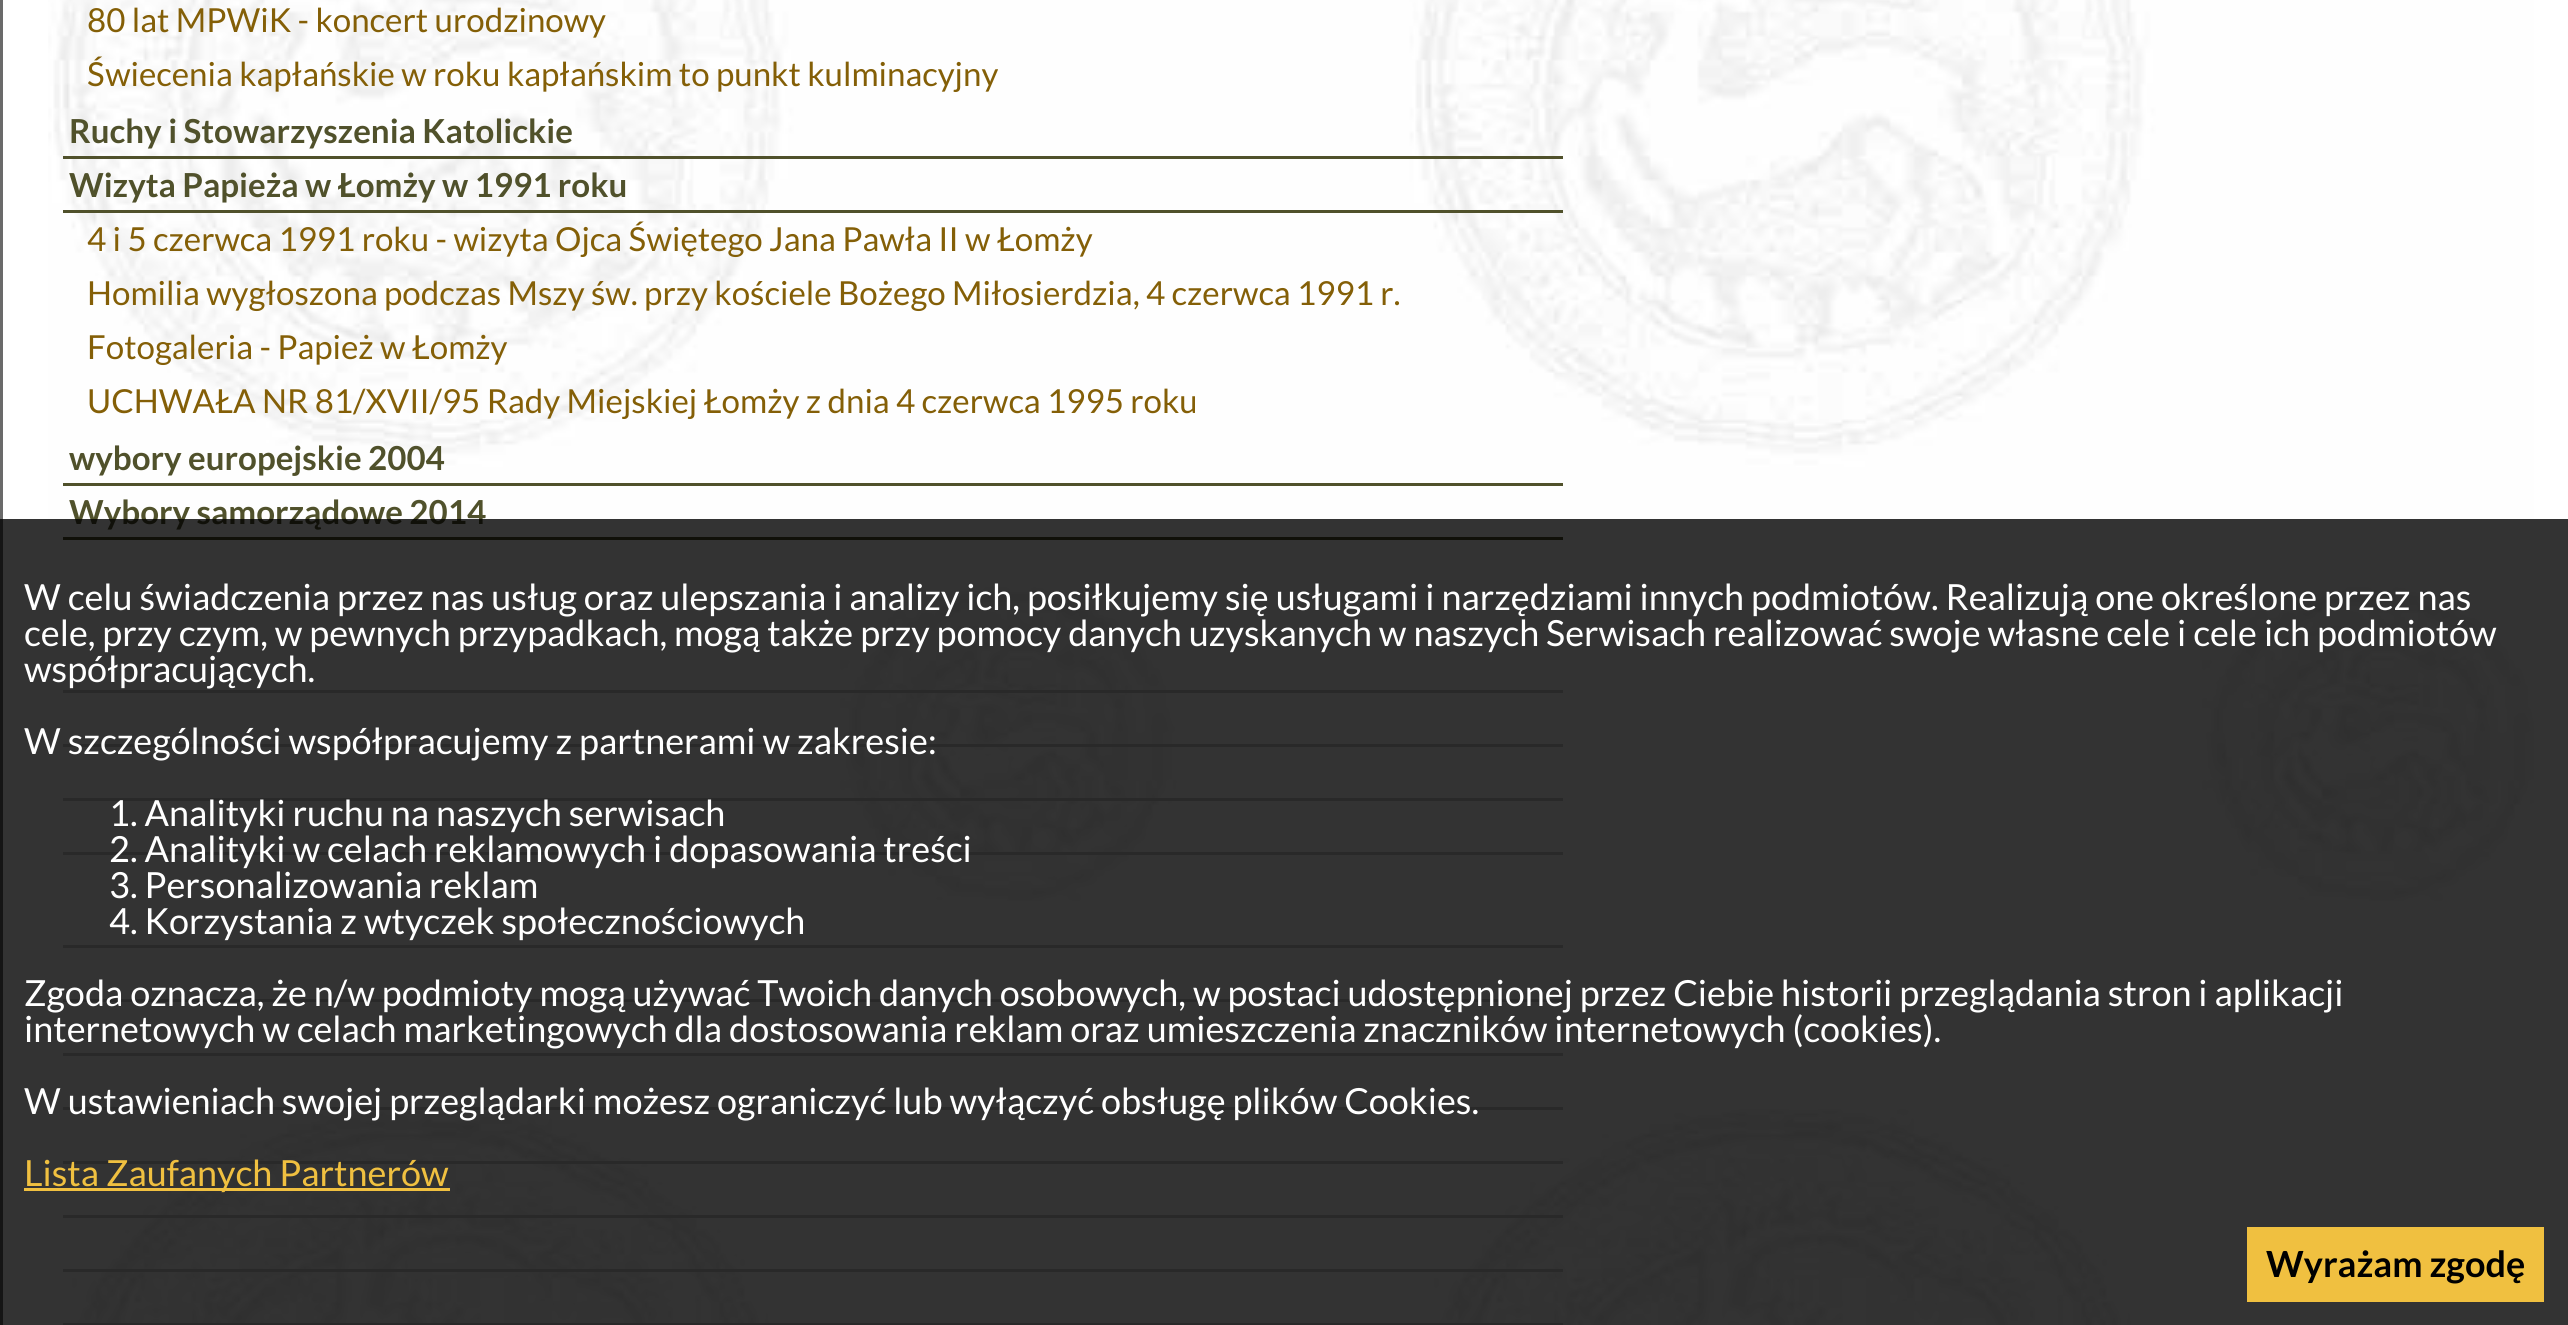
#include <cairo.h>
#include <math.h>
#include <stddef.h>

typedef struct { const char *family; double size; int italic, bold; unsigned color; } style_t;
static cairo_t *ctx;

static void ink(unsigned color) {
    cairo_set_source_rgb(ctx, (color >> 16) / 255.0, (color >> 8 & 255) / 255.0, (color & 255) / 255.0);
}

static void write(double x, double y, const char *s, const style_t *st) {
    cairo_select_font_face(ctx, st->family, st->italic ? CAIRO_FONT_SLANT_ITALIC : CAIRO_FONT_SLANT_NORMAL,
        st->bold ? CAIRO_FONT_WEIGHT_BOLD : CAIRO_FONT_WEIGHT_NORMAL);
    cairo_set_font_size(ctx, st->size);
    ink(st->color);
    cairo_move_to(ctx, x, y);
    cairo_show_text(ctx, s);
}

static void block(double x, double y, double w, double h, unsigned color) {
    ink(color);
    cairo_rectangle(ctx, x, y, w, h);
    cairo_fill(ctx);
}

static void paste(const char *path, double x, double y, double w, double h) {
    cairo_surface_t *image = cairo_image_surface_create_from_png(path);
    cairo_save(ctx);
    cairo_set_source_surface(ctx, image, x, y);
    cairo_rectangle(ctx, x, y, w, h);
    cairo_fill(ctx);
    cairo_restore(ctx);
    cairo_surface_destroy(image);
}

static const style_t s1 = {"Lato", 33.1, 0, 0, 0x845f07};
static const style_t s2 = {"Lato", 33.1, 0, 1, 0x50512b};
static const style_t s3 = {"Lato", 36, 0, 0, 0xffffff};
static const style_t s4 = {"Lato", 36, 0, 0, 0xf0c040};
static const style_t s5 = {"Lato", 36, 0, 1, 0x000000};

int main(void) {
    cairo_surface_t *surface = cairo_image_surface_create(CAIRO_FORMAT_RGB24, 2568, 1325);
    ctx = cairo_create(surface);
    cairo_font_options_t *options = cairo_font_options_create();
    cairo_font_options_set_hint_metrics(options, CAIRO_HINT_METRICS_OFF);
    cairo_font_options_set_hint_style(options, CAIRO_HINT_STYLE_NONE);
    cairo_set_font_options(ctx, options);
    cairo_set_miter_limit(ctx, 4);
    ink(0xffffff);
    cairo_paint(ctx);
    paste("pic1.png", 48, 0, 2486, 1325);
    block(0, 0, 3, 1325, 0x6a6a6a);
    write(87, 32, "80 lat MPWiK - koncert urodzinowy", &s1);
    write(87, 86, "Świecenia kapłańskie w roku kapłańskim to punkt kulminacyjny", &s1);
    block(63, 156, 1500, 3, 0x50512b);
    write(69, 143, "Ruchy i Stowarzyszenia Katolickie", &s2);
    block(63, 210, 1500, 3, 0x50512b);
    write(69, 197, "Wizyta Papieża w Łomży w 1991 roku", &s2);
    write(87, 251, "4 i 5 czerwca 1991 roku - wizyta Ojca Świętego Jana Pawła II w Łomży", &s1);
    write(87, 305, "Homilia wygłoszona podczas Mszy św. przy kościele Bożego Miłosierdzia, 4 czerwca 1991 r.", &s1);
    write(87, 359, "Fotogaleria - Papież w Łomży", &s1);
    write(87, 413, "UCHWAŁA NR 81/XVII/95 Rady Miejskiej Łomży z dnia 4 czerwca 1995 roku", &s1);
    block(63, 483, 1500, 3, 0x50512b);
    write(69, 470, "wybory europejskie 2004", &s2);
    block(63, 537, 1500, 3, 0x50512b);
    write(69, 524, "Wybory samorządowe 2014", &s2);
    block(63, 690, 1500, 3, 0xcccccc);
    block(63, 744, 1500, 3, 0xcccccc);
    block(63, 798, 1500, 3, 0xcccccc);
    block(63, 852, 1500, 3, 0xcccccc);
    block(63, 945, 1500, 3, 0xcccccc);
    block(63, 999, 1500, 3, 0xcccccc);
    block(63, 1053, 1500, 3, 0xcccccc);
    block(63, 1107, 1500, 3, 0xcccccc);
    block(63, 1161, 1500, 3, 0xcccccc);
    block(63, 1215, 1500, 3, 0xcccccc);
    block(63, 1269, 1500, 3, 0xcccccc);
    block(63, 1323, 1500, 2, 0xcccccc);
    cairo_set_source_rgba(ctx, 0, 0, 0, 0.8);
    cairo_rectangle(ctx, 0, 519, 2568, 806);
    cairo_fill(ctx);
    write(24, 610, "W celu świadczenia przez nas usług oraz ulepszania i analizy ich, posiłkujemy się usługami i narzędziami innych podmiotów. Realizują one określone przez nas", &s3);
    write(24, 646, "cele, przy czym, w pewnych przypadkach, mogą także przy pomocy danych uzyskanych w naszych Serwisach realizować swoje własne cele i cele ich podmiotów", &s3);
    write(24, 682, "współpracujących.", &s3);
    write(24, 754, "W szczególności współpracujemy z partnerami w zakresie:", &s3);
    write(109, 826, "1. Analityki ruchu na naszych serwisach", &s3);
    write(109, 862, "2. Analityki w celach reklamowych i dopasowania treści", &s3);
    write(109, 898, "3. Personalizowania reklam", &s3);
    write(109, 934, "4. Korzystania z wtyczek społecznościowych", &s3);
    write(24, 1006, "Zgoda oznacza, że n/w podmioty mogą używać Twoich danych osobowych, w postaci udostępnionej przez Ciebie historii przeglądania stron i aplikacji", &s3);
    write(24, 1042, "internetowych w celach marketingowych dla dostosowania reklam oraz umieszczenia znaczników internetowych (cookies).", &s3);
    write(24, 1114, "W ustawieniach swojej przeglądarki możesz ograniczyć lub wyłączyć obsługę plików Cookies.", &s3);
    block(24, 1188, 426, 3, 0xf0c040);
    write(24, 1186, "Lista Zaufanych Partnerów", &s4);
    block(2247, 1227, 297, 75, 0xf0c040);
    write(2266, 1277, "Wyrażam zgodę", &s5);
    cairo_surface_write_to_png(surface, "screenshot.png");
    cairo_font_options_destroy(options);
    cairo_destroy(ctx);
    cairo_surface_destroy(surface);
    return 0;
}
